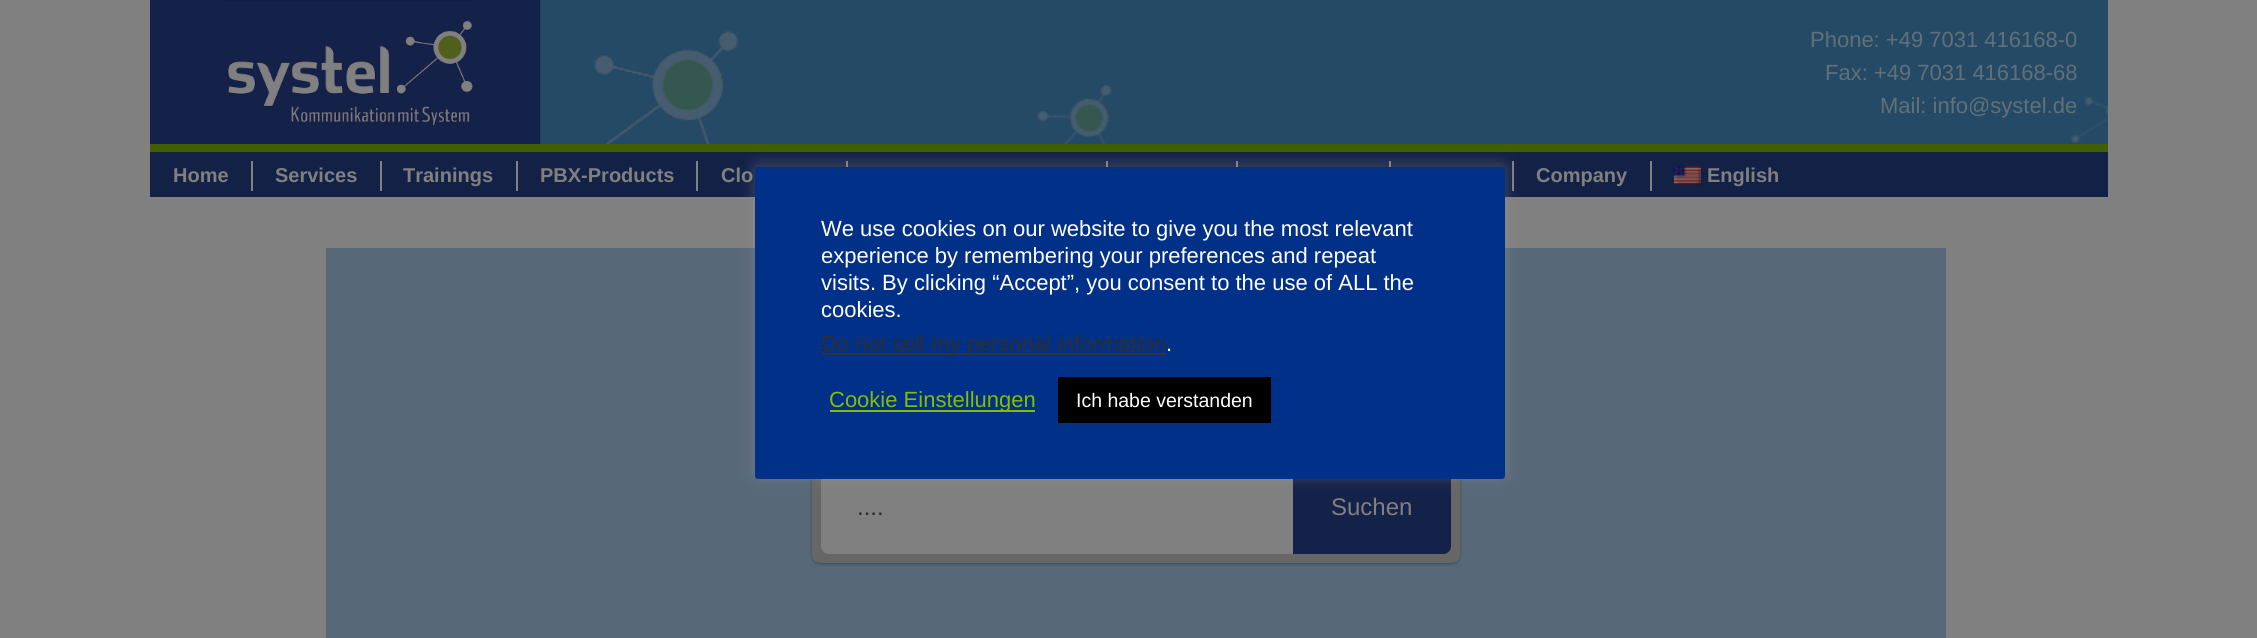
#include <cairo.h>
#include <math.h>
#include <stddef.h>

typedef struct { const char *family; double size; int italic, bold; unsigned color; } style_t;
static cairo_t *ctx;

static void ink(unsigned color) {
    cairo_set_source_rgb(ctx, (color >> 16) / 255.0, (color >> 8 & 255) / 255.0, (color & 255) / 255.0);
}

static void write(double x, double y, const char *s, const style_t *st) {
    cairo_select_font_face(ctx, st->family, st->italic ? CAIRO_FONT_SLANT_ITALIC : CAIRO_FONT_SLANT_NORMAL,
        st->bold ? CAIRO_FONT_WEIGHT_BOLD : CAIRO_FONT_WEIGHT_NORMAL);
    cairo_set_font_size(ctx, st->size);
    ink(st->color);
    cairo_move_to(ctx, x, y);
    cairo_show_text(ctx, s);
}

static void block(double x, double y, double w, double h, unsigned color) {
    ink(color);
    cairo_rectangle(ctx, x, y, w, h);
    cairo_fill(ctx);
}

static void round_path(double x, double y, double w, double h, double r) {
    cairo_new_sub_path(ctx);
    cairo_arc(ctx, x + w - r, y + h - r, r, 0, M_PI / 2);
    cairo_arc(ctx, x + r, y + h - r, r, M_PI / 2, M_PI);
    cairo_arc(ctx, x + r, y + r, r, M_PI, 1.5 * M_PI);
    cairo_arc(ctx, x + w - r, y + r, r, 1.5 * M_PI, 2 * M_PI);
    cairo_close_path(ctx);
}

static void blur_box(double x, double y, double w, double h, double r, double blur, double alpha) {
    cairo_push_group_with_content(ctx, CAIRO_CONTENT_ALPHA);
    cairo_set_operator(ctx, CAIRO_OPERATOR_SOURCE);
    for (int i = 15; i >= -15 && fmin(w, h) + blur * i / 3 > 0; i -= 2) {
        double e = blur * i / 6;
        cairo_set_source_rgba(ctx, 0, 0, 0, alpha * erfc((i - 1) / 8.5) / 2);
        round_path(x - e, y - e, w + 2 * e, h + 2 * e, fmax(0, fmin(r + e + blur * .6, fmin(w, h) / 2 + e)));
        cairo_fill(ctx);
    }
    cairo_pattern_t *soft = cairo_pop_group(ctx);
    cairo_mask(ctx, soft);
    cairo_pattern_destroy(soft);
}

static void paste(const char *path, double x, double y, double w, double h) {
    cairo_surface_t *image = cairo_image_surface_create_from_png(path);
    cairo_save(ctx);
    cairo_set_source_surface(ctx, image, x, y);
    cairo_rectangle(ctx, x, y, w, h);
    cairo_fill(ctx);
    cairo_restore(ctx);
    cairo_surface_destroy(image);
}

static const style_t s1 = {"Liberation Sans", 22, 0, 0, 0x617078};
static const style_t s2 = {"Liberation Sans", 20, 0, 1, 0x808080};
static const style_t s3 = {"Liberation Sans", 24, 0, 0, 0x2e2e2e};
static const style_t s4 = {"Liberation Sans", 24, 0, 0, 0x808080};
static const style_t s5 = {"Liberation Sans", 22, 0, 0, 0xffffff};
static const style_t s6 = {"Liberation Sans", 22, 0, 0, 0x2e2e2e};
static const style_t s7 = {"Liberation Sans", 22, 0, 0, 0x84bd00};
static const style_t s8 = {"Liberation Sans", 19.5, 0, 0, 0xffffff};

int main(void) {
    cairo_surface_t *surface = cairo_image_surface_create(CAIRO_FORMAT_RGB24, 2257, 638);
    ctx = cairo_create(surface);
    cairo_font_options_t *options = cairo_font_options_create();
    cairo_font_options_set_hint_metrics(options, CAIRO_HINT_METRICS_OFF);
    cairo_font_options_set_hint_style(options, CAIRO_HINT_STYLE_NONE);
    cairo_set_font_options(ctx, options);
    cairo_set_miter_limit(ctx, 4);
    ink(0x808080);
    cairo_paint(ctx);
    block(541, 0, 1567, 144, 0x254a66);
    paste("pic1.png", 150, 0, 391, 144);
    paste("pic2.png", 226, 0, 314, 144);
    paste("pic3.png", 594, 31, 1514, 113);
    write(1810, 47, "Phone: +49 7031 416168-0", &s1);
    write(1825, 80, "Fax: +49 7031 416168-68", &s1);
    write(1880, 113, "Mail: info@systel.de", &s1);
    block(150, 152, 1958, 45, 0x142147);
    block(150, 144, 1958, 8, 0x425f00);
    block(846, 161, 2, 6, 0x808080);
    block(1106, 161, 2, 6, 0x808080);
    block(1236, 161, 2, 6, 0x808080);
    block(1389, 161, 2, 6, 0x808080);
    write(173, 182, "Home", &s2);
    block(251, 161, 2, 30, 0x808080);
    write(275, 182, "Services", &s2);
    block(380, 161, 2, 30, 0x808080);
    write(403, 182, "Trainings", &s2);
    block(516, 161, 2, 30, 0x808080);
    write(540, 182, "PBX-Products", &s2);
    block(696, 161, 2, 30, 0x808080);
    write(721, 182, "Clo", &s2);
    block(1512, 161, 2, 30, 0x808080);
    write(1536, 182, "Company", &s2);
    block(1650, 161, 2, 30, 0x808080);
    paste("pic4.png", 1674, 166, 27, 19);
    write(1707, 182, "English", &s2);
    block(326, 248, 1620, 390, 0x576879);
    ink(0x000000);
    blur_box(812, 455, 648, 109, 8, 1.5, 0.32);
    ink(0x666666);
    round_path(812, 453, 648, 110, 8);
    cairo_fill(ctx);
    ink(0x808080);
    cairo_new_path(ctx);
    cairo_move_to(ctx, 829, 462);
    cairo_line_to(ctx, 1293, 462);
    cairo_line_to(ctx, 1293, 554);
    cairo_line_to(ctx, 829, 554);
    cairo_curve_to(ctx, 824.5, 554, 821, 550.5, 821, 546);
    cairo_line_to(ctx, 821, 470);
    cairo_curve_to(ctx, 821, 465.5, 824.5, 462, 829, 462);
    cairo_close_path(ctx);
    cairo_fill(ctx);
    write(857, 515, "....", &s3);
    ink(0x142148);
    cairo_new_path(ctx);
    cairo_move_to(ctx, 1293, 462);
    cairo_line_to(ctx, 1443, 462);
    cairo_curve_to(ctx, 1447.5, 462, 1451, 465.5, 1451, 470);
    cairo_line_to(ctx, 1451, 546);
    cairo_curve_to(ctx, 1451, 550.5, 1447.5, 554, 1443, 554);
    cairo_line_to(ctx, 1293, 554);
    cairo_close_path(ctx);
    cairo_fill(ctx);
    write(1331, 515, "Suchen", &s4);
    ink(0xacabab);
    blur_box(755, 165, 750, 312, 3, 7.5, 0.3);
    ink(0x003087);
    round_path(755, 167, 750, 312, 3);
    cairo_fill(ctx);
    write(821, 236, "We use cookies on our website to give you the most relevant", &s5);
    write(821, 263, "experience by remembering your preferences and repeat", &s5);
    write(821, 290, "visits. By clicking “Accept”, you consent to the use of ALL the", &s5);
    write(821, 317, "cookies.", &s5);
    block(822, 353, 344, 2, 0x333333);
    write(821, 351, "Do not sell my personal information", &s6);
    write(1166, 351, ".", &s5);
    block(830, 410, 205, 2, 0x84bd00);
    write(829, 407, "Cookie Einstellungen", &s7);
    block(1058, 377, 213, 46, 0x000000);
    write(1076, 407, "Ich habe verstanden", &s8);
    cairo_surface_write_to_png(surface, "screenshot.png");
    cairo_font_options_destroy(options);
    cairo_destroy(ctx);
    cairo_surface_destroy(surface);
    return 0;
}
